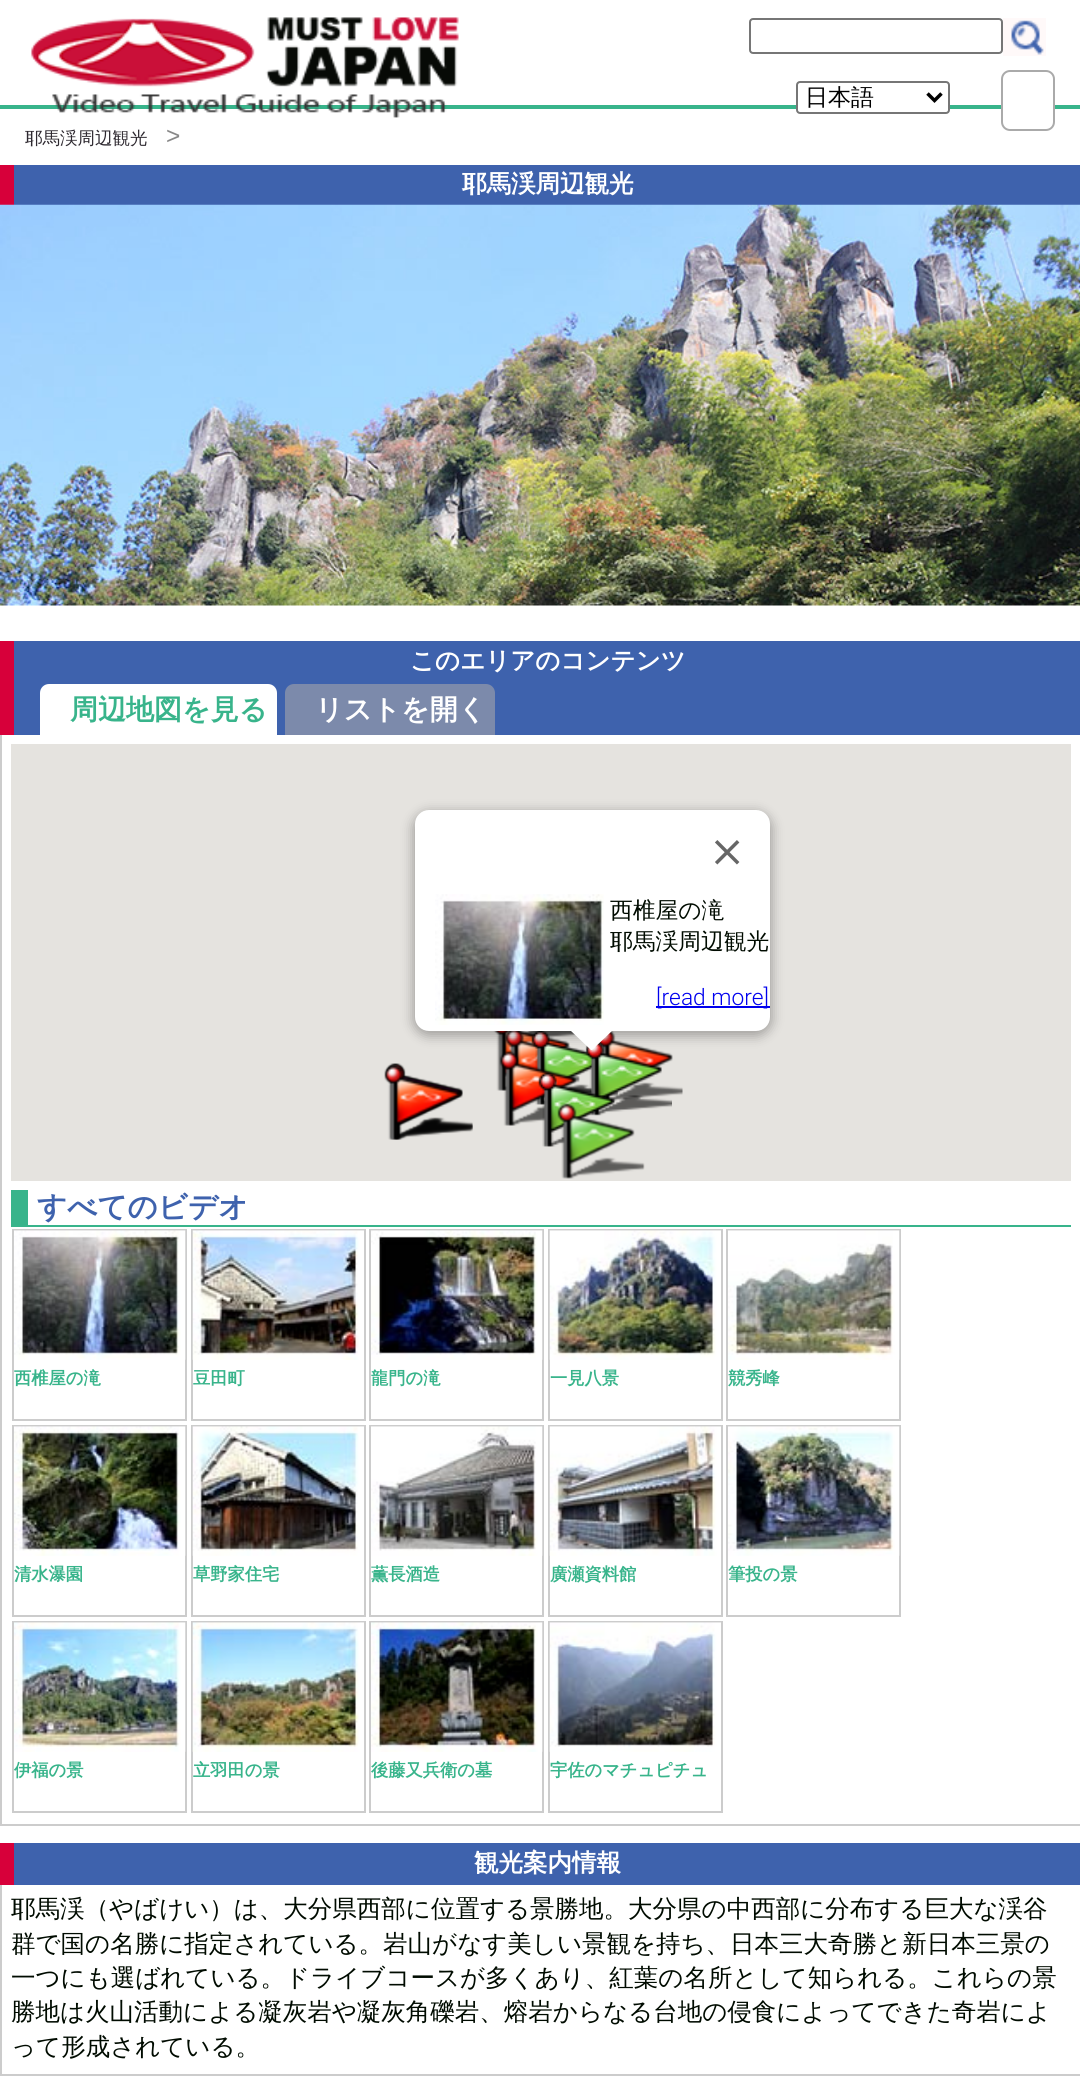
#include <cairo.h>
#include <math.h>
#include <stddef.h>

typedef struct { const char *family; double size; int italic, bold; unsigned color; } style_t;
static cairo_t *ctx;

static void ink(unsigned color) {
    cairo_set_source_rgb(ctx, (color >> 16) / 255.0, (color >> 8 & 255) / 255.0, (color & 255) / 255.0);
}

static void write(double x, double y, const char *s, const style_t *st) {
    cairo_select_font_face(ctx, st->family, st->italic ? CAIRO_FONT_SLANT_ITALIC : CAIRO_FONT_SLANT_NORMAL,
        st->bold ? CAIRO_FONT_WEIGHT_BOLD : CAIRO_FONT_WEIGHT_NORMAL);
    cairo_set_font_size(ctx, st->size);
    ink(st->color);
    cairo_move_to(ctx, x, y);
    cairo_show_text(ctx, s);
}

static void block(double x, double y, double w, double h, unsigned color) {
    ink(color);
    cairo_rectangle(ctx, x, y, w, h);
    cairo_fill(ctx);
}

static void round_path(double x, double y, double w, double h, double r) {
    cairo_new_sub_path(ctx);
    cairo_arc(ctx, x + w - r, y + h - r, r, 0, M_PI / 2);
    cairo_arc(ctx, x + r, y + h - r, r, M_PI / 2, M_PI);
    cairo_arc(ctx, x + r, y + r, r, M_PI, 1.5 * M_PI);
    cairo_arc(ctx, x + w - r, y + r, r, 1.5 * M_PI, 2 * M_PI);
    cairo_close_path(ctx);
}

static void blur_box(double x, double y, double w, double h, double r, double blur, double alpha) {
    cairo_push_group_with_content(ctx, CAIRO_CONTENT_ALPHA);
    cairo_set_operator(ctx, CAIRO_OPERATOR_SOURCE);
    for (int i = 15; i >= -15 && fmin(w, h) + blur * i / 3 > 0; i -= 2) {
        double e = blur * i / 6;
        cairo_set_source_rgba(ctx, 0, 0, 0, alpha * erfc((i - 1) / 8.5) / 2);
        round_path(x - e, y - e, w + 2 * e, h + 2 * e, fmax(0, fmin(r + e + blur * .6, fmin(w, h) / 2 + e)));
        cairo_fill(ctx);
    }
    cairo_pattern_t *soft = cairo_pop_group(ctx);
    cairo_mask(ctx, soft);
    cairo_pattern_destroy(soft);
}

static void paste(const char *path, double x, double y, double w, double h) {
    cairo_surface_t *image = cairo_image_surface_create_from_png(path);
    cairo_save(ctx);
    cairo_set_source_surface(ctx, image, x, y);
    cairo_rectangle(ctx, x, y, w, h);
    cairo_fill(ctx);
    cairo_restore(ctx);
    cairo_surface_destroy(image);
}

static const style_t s1 = {"WenQuanYi Zen Hei Medium", 23, 0, 0, 0x000000};
static const style_t s2 = {"WenQuanYi Zen Hei Medium", 17.5, 0, 0, 0x2e2930};
static const style_t s3 = {"Liberation Sans", 24.5, 0, 0, 0x888888};
static const style_t s4 = {"WenQuanYi Zen Hei", 24.5, 0, 1, 0xffffff};
static const style_t s5 = {"WenQuanYi Zen Hei", 28, 0, 1, 0x38b48b};
static const style_t s6 = {"WenQuanYi Zen Hei", 28, 0, 1, 0xffffff};
static const style_t s7 = {"WenQuanYi Zen Hei Medium", 22.75, 0, 0, 0x000b00};
static const style_t s8 = {"Roboto Light", 22.75, 0, 0, 0x0000ee};
static const style_t s9 = {"WenQuanYi Zen Hei", 29.5, 0, 1, 0x3e62ad};
static const style_t s10 = {"WenQuanYi Zen Hei", 17.25, 0, 1, 0x38b48b};
static const style_t s11 = {"WenQuanYi Zen Hei Medium", 24.5, 0, 0, 0x000b00};

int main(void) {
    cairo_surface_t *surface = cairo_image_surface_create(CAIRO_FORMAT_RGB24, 1080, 2089);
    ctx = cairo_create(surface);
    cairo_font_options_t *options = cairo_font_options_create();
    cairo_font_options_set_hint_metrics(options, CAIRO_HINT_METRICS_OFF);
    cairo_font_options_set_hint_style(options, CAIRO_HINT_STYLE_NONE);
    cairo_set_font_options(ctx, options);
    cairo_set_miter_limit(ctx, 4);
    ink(0xffffff);
    cairo_paint(ctx);
    block(0, 105, 1080, 4, 0x38b48b);
    paste("pic1.png", 31, 17, 428, 101);
    round_path(750, 19, 252, 34, 3);
    ink(0x767676);
    cairo_stroke(ctx);
    paste("pic2.png", 1003, 18, 43, 38);
    ink(0xffffff);
    round_path(797, 82, 152, 31, 3);
    cairo_fill_preserve(ctx);
    ink(0x767676);
    cairo_stroke(ctx);
    cairo_new_path(ctx);
    cairo_move_to(ctx, 927.5, 93.5);
    cairo_line_to(ctx, 934.5, 100.5);
    cairo_line_to(ctx, 941.5, 93.5);
    ink(0x000000);
    cairo_set_line_width(ctx, 3.5);
    cairo_stroke(ctx);
    write(805, 105, "日本語", &s1);
    ink(0xffffff);
    round_path(1002, 71, 52, 59, 8);
    cairo_fill_preserve(ctx);
    ink(0xaaaaaa);
    cairo_set_line_width(ctx, 2);
    cairo_stroke(ctx);
    write(25, 144, "耶馬渓周辺観光", &s2);
    write(166, 144, ">", &s3);
    block(14, 165, 1066, 40, 0x3e62ad);
    block(0, 165, 14, 40, 0xd7003a);
    write(462, 192, "耶馬渓周辺観光", &s4);
    paste("pic3.png", 0, 204, 1080, 402);
    block(14, 641, 1066, 94, 0x3e62ad);
    block(0, 641, 14, 94, 0xd7003a);
    write(410, 669, "このエリアのコンテンツ", &s4);
    cairo_new_path(ctx);
    cairo_move_to(ctx, 49, 684);
    cairo_line_to(ctx, 268, 684);
    cairo_curve_to(ctx, 273, 684, 277, 688, 277, 693);
    cairo_line_to(ctx, 277, 735);
    cairo_line_to(ctx, 40, 735);
    cairo_line_to(ctx, 40, 693);
    cairo_curve_to(ctx, 40, 688, 44, 684, 49, 684);
    cairo_close_path(ctx);
    cairo_fill(ctx);
    write(70, 719, "周辺地図を見る", &s5);
    ink(0x7c8aab);
    cairo_new_path(ctx);
    cairo_move_to(ctx, 294, 684);
    cairo_line_to(ctx, 486, 684);
    cairo_curve_to(ctx, 491, 684, 495, 688, 495, 693);
    cairo_line_to(ctx, 495, 735);
    cairo_line_to(ctx, 285, 735);
    cairo_line_to(ctx, 285, 693);
    cairo_curve_to(ctx, 285, 688, 289, 684, 294, 684);
    cairo_close_path(ctx);
    cairo_fill(ctx);
    write(315, 719, "リストを開く", &s6);
    block(0, 1824, 1080, 2, 0xcccccc);
    block(0, 735, 2, 1090, 0xcccccc);
    block(11, 744, 1060, 437, 0xe5e3df);
    paste("pic8.png", 509, 1031, 68, 8);
    paste("pic6.png", 493, 1031, 87, 60);
    paste("pic7.png", 505, 1031, 87, 69);
    paste("pic10.png", 598, 1031, 85, 73);
    paste("pic9.png", 531, 1031, 87, 74);
    paste("pic13.png", 585, 1041, 87, 75);
    paste("pic12.png", 499, 1050, 88, 76);
    ink(0x000000);
    blur_box(413, 812, 359, 224, 16, 6, 0.3);
    ink(0xffffff);
    round_path(415, 810, 355, 221, 14);
    cairo_fill(ctx);
    paste("pic4.png", 715, 840, 25, 25);
    paste("pic5.png", 435, 894, 169, 131);
    write(610, 918, "西椎屋の滝", &s7);
    write(610, 949, "耶馬渓周辺観光", &s7);
    block(656, 1006, 114, 2, 0x0000ee);
    write(656, 1005, "[read more]", &s8);
    ink(0xffffff);
    cairo_new_path(ctx);
    cairo_move_to(ctx, 571, 1031);
    cairo_line_to(ctx, 571, 1030);
    cairo_line_to(ctx, 613, 1030);
    cairo_line_to(ctx, 592, 1050);
    cairo_line_to(ctx, 591, 1050);
    cairo_close_path(ctx);
    cairo_fill(ctx);
    paste("pic11.png", 385, 1063, 88, 76);
    paste("pic14.png", 385, 1063, 88, 76);
    paste("pic16.png", 385, 1065, 88, 75);
    paste("pic15.png", 384, 1065, 87, 75);
    paste("pic17.png", 538, 1072, 87, 75);
    paste("pic18.png", 557, 1103, 88, 76);
    block(28, 1225, 1043, 2, 0x38b48b);
    block(11, 1190, 17, 37, 0x38b48b);
    write(37, 1217, "すべてのビデオ", &s9);
    cairo_rectangle(ctx, 13, 1230, 173, 190);
    ink(0xcccccc);
    cairo_stroke(ctx);
    paste("pic19.png", 14, 1230, 172, 130);
    write(14, 1384, "西椎屋の滝", &s10);
    cairo_rectangle(ctx, 192, 1230, 173, 190);
    ink(0xcccccc);
    cairo_stroke(ctx);
    paste("pic20.png", 192, 1230, 172, 130);
    write(193, 1384, "豆田町", &s10);
    cairo_rectangle(ctx, 370, 1230, 173, 190);
    ink(0xcccccc);
    cairo_stroke(ctx);
    paste("pic21.png", 371, 1230, 172, 130);
    write(371, 1384, "龍門の滝", &s10);
    cairo_rectangle(ctx, 549, 1230, 173, 190);
    ink(0xcccccc);
    cairo_stroke(ctx);
    paste("pic22.png", 549, 1230, 172, 130);
    write(550, 1384, "一見八景", &s10);
    cairo_rectangle(ctx, 727, 1230, 173, 190);
    ink(0xcccccc);
    cairo_stroke(ctx);
    paste("pic23.png", 728, 1230, 172, 130);
    write(728, 1384, "競秀峰", &s10);
    cairo_rectangle(ctx, 13, 1426, 173, 190);
    ink(0xcccccc);
    cairo_stroke(ctx);
    paste("pic24.png", 14, 1426, 172, 130);
    write(14, 1580, "清水瀑園", &s10);
    cairo_rectangle(ctx, 192, 1426, 173, 190);
    ink(0xcccccc);
    cairo_stroke(ctx);
    paste("pic25.png", 192, 1426, 172, 130);
    write(193, 1580, "草野家住宅", &s10);
    cairo_rectangle(ctx, 370, 1426, 173, 190);
    ink(0xcccccc);
    cairo_stroke(ctx);
    paste("pic26.png", 371, 1426, 172, 130);
    write(371, 1580, "薫長酒造", &s10);
    cairo_rectangle(ctx, 549, 1426, 173, 190);
    ink(0xcccccc);
    cairo_stroke(ctx);
    paste("pic27.png", 549, 1426, 172, 130);
    write(550, 1580, "廣瀬資料館", &s10);
    cairo_rectangle(ctx, 727, 1426, 173, 190);
    ink(0xcccccc);
    cairo_stroke(ctx);
    paste("pic28.png", 728, 1426, 172, 130);
    write(728, 1580, "筆投の景", &s10);
    cairo_rectangle(ctx, 13, 1622, 173, 190);
    ink(0xcccccc);
    cairo_stroke(ctx);
    paste("pic29.png", 14, 1622, 172, 130);
    write(14, 1776, "伊福の景", &s10);
    cairo_rectangle(ctx, 192, 1622, 173, 190);
    ink(0xcccccc);
    cairo_stroke(ctx);
    paste("pic30.png", 192, 1622, 172, 130);
    write(193, 1776, "立羽田の景", &s10);
    cairo_rectangle(ctx, 370, 1622, 173, 190);
    ink(0xcccccc);
    cairo_stroke(ctx);
    paste("pic31.png", 371, 1622, 172, 130);
    write(371, 1776, "後藤又兵衛の墓", &s10);
    cairo_rectangle(ctx, 549, 1622, 173, 190);
    ink(0xcccccc);
    cairo_stroke(ctx);
    paste("pic32.png", 549, 1622, 172, 130);
    write(550, 1776, "宇佐のマチュピチュ", &s10);
    block(14, 1843, 1066, 42, 0x3e62ad);
    block(0, 1843, 14, 42, 0xd7003a);
    write(474, 1871, "観光案内情報", &s4);
    block(0, 2074, 1080, 2, 0xcccccc);
    block(0, 1885, 2, 191, 0xcccccc);
    write(11, 1917, "耶馬渓（やばけい）は、大分県西部に位置する景勝地。大分県の中西部に分布する巨大な渓谷", &s11);
    write(11, 1952, "群で国の名勝に指定されている。岩山がなす美しい景観を持ち、日本三大奇勝と新日本三景の", &s11);
    write(11, 1986, "一つにも選ばれている。ドライブコースが多くあり、紅葉の名所として知られる。これらの景", &s11);
    write(11, 2020, "勝地は火山活動による凝灰岩や凝灰角礫岩、熔岩からなる台地の侵食によってできた奇岩によ", &s11);
    write(11, 2055, "って形成されている。", &s11);
    cairo_surface_write_to_png(surface, "screenshot.png");
    cairo_font_options_destroy(options);
    cairo_destroy(ctx);
    cairo_surface_destroy(surface);
    return 0;
}
